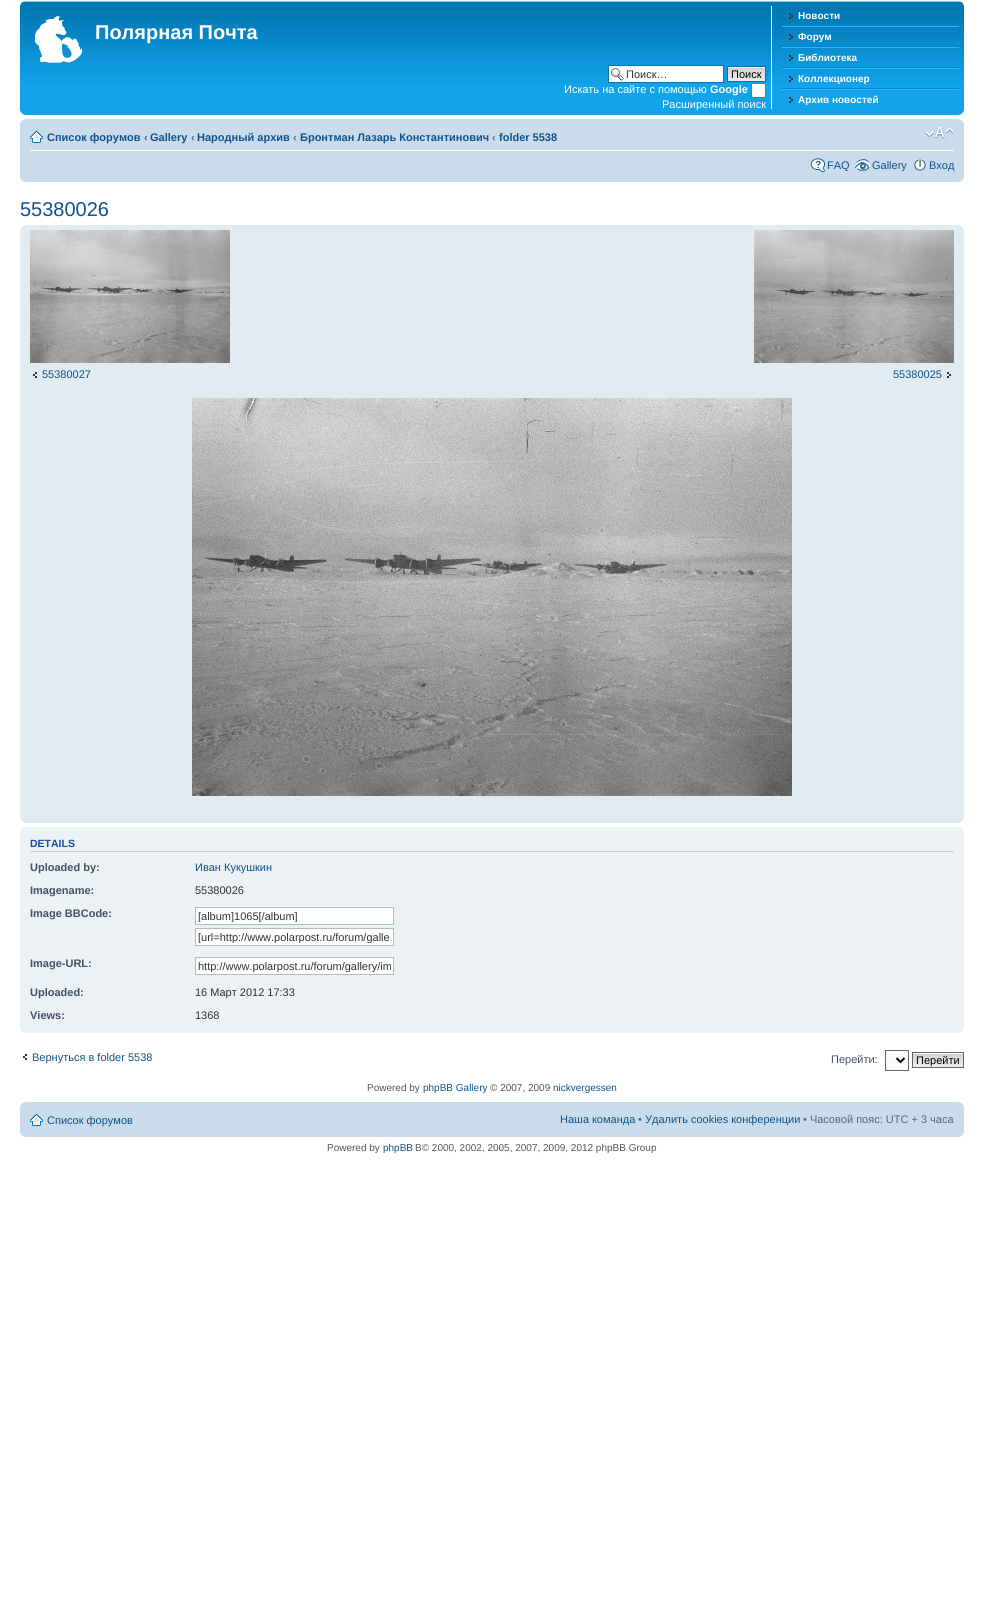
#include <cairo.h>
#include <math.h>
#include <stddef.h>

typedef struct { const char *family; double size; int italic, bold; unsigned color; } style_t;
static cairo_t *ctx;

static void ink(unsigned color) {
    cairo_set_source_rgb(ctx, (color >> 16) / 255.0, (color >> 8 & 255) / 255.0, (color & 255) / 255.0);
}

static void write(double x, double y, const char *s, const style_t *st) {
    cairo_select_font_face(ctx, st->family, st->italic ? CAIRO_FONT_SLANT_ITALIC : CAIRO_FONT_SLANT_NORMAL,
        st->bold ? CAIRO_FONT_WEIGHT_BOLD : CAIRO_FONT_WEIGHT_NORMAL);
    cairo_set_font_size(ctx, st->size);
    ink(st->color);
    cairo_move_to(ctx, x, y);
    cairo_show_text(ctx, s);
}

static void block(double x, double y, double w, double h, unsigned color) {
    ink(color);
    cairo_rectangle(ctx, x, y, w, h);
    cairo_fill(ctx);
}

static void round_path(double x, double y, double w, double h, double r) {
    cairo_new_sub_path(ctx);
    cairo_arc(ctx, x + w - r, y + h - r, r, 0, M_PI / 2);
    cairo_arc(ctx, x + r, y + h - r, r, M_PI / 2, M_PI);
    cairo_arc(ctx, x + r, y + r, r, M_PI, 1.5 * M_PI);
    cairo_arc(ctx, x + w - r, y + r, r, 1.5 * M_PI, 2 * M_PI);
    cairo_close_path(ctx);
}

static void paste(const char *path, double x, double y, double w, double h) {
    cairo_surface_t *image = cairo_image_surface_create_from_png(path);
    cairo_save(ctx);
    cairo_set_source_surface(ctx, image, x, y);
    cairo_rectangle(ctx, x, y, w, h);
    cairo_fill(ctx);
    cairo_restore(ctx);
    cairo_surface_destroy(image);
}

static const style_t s1 = {"Liberation Sans", 20, 0, 1, 0xffffff};
static const style_t s2 = {"Liberation Sans", 10, 0, 1, 0xffffff};
static const style_t s3 = {"Liberation Sans", 11, 0, 0, 0x333333};
static const style_t s4 = {"Liberation Sans", 11, 0, 0, 0x000000};
static const style_t s5 = {"Liberation Sans", 11, 0, 0, 0xffffff};
static const style_t s6 = {"Liberation Sans", 11, 0, 1, 0xffffff};
static const style_t s7 = {"Liberation Sans", 11, 0, 1, 0x105289};
static const style_t s8 = {"Liberation Sans", 11, 0, 1, 0x536482};
static const style_t s9 = {"Liberation Sans", 11, 0, 0, 0x105289};
static const style_t s10 = {"Liberation Sans", 20, 0, 0, 0x105289};
static const style_t s11 = {"Liberation Sans", 10.5, 0, 1, 0x115098};
static const style_t s12 = {"Liberation Sans", 11, 0, 1, 0x425067};
static const style_t s13 = {"Liberation Sans", 11, 0, 0, 0x28313f};
static const style_t s14 = {"Liberation Sans", 11, 0, 0, 0x425067};
static const style_t s15 = {"Liberation Sans", 10, 0, 0, 0x555555};
static const style_t s16 = {"Liberation Sans", 10, 0, 0, 0x105289};
static const style_t s17 = {"Liberation Sans", 11, 0, 0, 0x536482};

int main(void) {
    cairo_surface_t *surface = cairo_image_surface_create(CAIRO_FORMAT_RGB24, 984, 1616);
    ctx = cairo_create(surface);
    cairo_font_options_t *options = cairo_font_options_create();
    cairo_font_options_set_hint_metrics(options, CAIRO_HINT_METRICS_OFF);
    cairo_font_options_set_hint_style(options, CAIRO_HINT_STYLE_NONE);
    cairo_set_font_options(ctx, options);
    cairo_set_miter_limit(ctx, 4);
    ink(0xffffff);
    cairo_paint(ctx);
    block(20, 83, 944, 32, 0x12a3eb);
    paste("pic1.png", 20, 1, 944, 82);
    paste("pic2.png", 20, 1, 5, 5);
    paste("pic3.png", 959, 1, 5, 5);
    paste("pic4.png", 35, 16, 47, 47);
    write(95, 39, "Полярная Почта", &s1);
    block(771, 6, 1, 103, 0xffffff);
    block(782, 25, 177, 1, 0x0084cc);
    paste("pic5.png", 789, 13, 4, 6);
    write(798, 19, "Новости", &s2);
    block(782, 26, 177, 1, 0x26b7ff);
    block(782, 46, 177, 1, 0x0084cc);
    paste("pic6.png", 789, 34, 4, 6);
    write(798, 40, "Форум", &s2);
    block(782, 47, 177, 1, 0x26b7ff);
    block(782, 67, 177, 1, 0x0084cc);
    paste("pic7.png", 789, 55, 4, 6);
    write(798, 61, "Библиотека", &s2);
    block(782, 68, 177, 1, 0x26b7ff);
    block(782, 88, 177, 1, 0x0084cc);
    paste("pic8.png", 789, 76, 4, 6);
    write(798, 82, "Коллекционер", &s2);
    block(782, 89, 177, 1, 0x26b7ff);
    paste("pic9.png", 789, 97, 4, 6);
    write(798, 103, "Архив новостей", &s2);
    block(609, 66, 114, 16, 0xffffff);
    paste("pic10.png", 611, 68, 13, 13);
    cairo_rectangle(ctx, 608.5, 65.5, 115, 17);
    ink(0x0075b0);
    cairo_set_line_width(ctx, 1);
    cairo_stroke(ctx);
    write(626, 78, "Поиск…", &s3);
    paste("pic11.png", 728, 67, 37, 14);
    cairo_rectangle(ctx, 727.5, 66.5, 38, 15);
    ink(0x0075b0);
    cairo_stroke(ctx);
    write(731, 78, "Поиск", &s4);
    write(564, 93, "Искать на сайте с помощью", &s5);
    write(710, 93, "Google", &s6);
    round_path(751.5, 83.5, 14, 14, 1.5);
    cairo_fill_preserve(ctx);
    ink(0x767676);
    cairo_stroke(ctx);
    write(662, 108, "Расширенный поиск", &s5);
    paste("pic12.png", 20, 110, 5, 5);
    paste("pic13.png", 959, 110, 5, 5);
    block(20, 119, 944, 63, 0xcadceb);
    paste("pic14.png", 20, 119, 5, 5);
    paste("pic15.png", 959, 119, 5, 5);
    block(30, 150, 924, 1, 0xffffff);
    paste("pic16.png", 30, 131, 13, 12);
    write(47, 141, "Список форумов", &s7);
    write(144, 141, "‹", &s8);
    write(150, 141, "Gallery", &s7);
    write(191, 141, "‹", &s8);
    write(197, 141, "Народный архив", &s7);
    write(293, 141, "‹", &s8);
    write(300, 141, "Бронтман Лазарь Константинович", &s7);
    write(492, 141, "‹", &s8);
    write(499, 141, "folder 5538", &s7);
    paste("pic17.png", 925, 127, 29, 12);
    paste("pic18.png", 810, 158, 16, 14);
    write(827, 169, "FAQ", &s9);
    paste("pic19.png", 855, 159, 15, 12);
    write(872, 169, "Gallery", &s9);
    paste("pic20.png", 914, 159, 12, 12);
    write(929, 169, "Вход", &s9);
    paste("pic21.png", 20, 177, 5, 5);
    paste("pic22.png", 959, 177, 5, 5);
    write(20, 216, "55380026", &s10);
    block(20, 225, 944, 598, 0xe1ebf2);
    paste("pic23.png", 20, 225, 5, 5);
    paste("pic24.png", 959, 225, 5, 5);
    paste("pic25.png", 30, 230, 200, 133);
    paste("pic26.png", 33, 372, 4, 6);
    write(42, 378, "55380027", &s9);
    paste("pic27.png", 754, 230, 200, 133);
    paste("pic28.png", 947, 372, 4, 6);
    write(893, 378, "55380025", &s9);
    paste("pic29.png", 192, 398, 600, 398);
    paste("pic30.png", 20, 818, 5, 5);
    paste("pic31.png", 959, 818, 5, 5);
    block(20, 827, 944, 206, 0xecf1f3);
    paste("pic32.png", 20, 827, 5, 5);
    paste("pic33.png", 959, 827, 5, 5);
    block(30, 851, 924, 1, 0xcccccc);
    write(30, 847, "DETAILS", &s11);
    write(30, 871, "Uploaded by:", &s12);
    write(195, 871, "Иван Кукушкин", &s9);
    write(30, 894, "Imagename:", &s12);
    write(195, 894, "55380026", &s13);
    write(30, 917, "Image BBCode:", &s12);
    ink(0xffffff);
    cairo_rectangle(ctx, 195.5, 907.5, 198, 17);
    cairo_fill_preserve(ctx);
    ink(0xb4bac0);
    cairo_stroke(ctx);
    cairo_save(ctx);
    cairo_rectangle(ctx, 198, 910, 193, 12);
    cairo_clip(ctx);
    write(198, 920, "[album]1065[/album]", &s3);
    cairo_restore(ctx);
    ink(0xffffff);
    cairo_rectangle(ctx, 195.5, 928.5, 198, 17);
    cairo_fill_preserve(ctx);
    ink(0xb4bac0);
    cairo_stroke(ctx);
    cairo_save(ctx);
    cairo_rectangle(ctx, 198, 931, 193, 12);
    cairo_clip(ctx);
    write(198, 941, "[url=http://www.polarpost.ru/forum/galle", &s3);
    cairo_restore(ctx);
    write(30, 967, "Image-URL:", &s12);
    ink(0xffffff);
    cairo_rectangle(ctx, 195.5, 957.5, 198, 17);
    cairo_fill_preserve(ctx);
    ink(0xb4bac0);
    cairo_stroke(ctx);
    cairo_save(ctx);
    cairo_rectangle(ctx, 198, 960, 193, 12);
    cairo_clip(ctx);
    write(198, 970, "http://www.polarpost.ru/forum/gallery/im", &s3);
    cairo_restore(ctx);
    write(30, 996, "Uploaded:", &s12);
    write(195, 996, "16 Март 2012 17:33", &s13);
    write(30, 1019, "Views:", &s12);
    write(195, 1019, "1368", &s13);
    paste("pic34.png", 20, 1028, 5, 5);
    paste("pic35.png", 959, 1028, 5, 5);
    paste("pic36.png", 23, 1054, 4, 6);
    write(32, 1061, "Вернуться в folder 5538", &s9);
    write(831, 1063, "Перейти:", &s14);
    ink(0xfafafa);
    cairo_rectangle(ctx, 885.5, 1050.5, 23, 20);
    cairo_fill_preserve(ctx);
    ink(0x666666);
    cairo_stroke(ctx);
    cairo_new_path(ctx);
    cairo_move_to(ctx, 896.5, 1058);
    cairo_line_to(ctx, 900.5, 1062);
    cairo_line_to(ctx, 904.5, 1058);
    ink(0x000000);
    cairo_set_line_width(ctx, 2);
    cairo_stroke(ctx);
    paste("pic37.png", 913, 1053, 50, 14);
    cairo_rectangle(ctx, 912.5, 1052.5, 51, 15);
    ink(0x666666);
    cairo_set_line_width(ctx, 1);
    cairo_stroke(ctx);
    write(916, 1064, "Перейти", &s4);
    write(367, 1091, "Powered by", &s15);
    write(423, 1091, "phpBB Gallery", &s16);
    write(490, 1091, "© 2007, 2009", &s15);
    write(553, 1091, "nickvergessen", &s16);
    block(20, 1102, 944, 35, 0xcadceb);
    paste("pic14.png", 20, 1102, 5, 5);
    paste("pic15.png", 959, 1102, 5, 5);
    paste("pic16.png", 30, 1114, 13, 12);
    write(47, 1124, "Список форумов", &s9);
    write(560, 1123, "Наша команда", &s9);
    write(638, 1123, "•", &s17);
    write(645, 1123, "Удалить cookies конференции", &s9);
    write(803, 1123, "• Часовой пояс: UTC + 3 часа", &s17);
    paste("pic21.png", 20, 1132, 5, 5);
    paste("pic22.png", 959, 1132, 5, 5);
    write(327, 1151, "Powered by", &s15);
    write(383, 1151, "phpBB", &s16);
    write(415, 1151, "В© 2000, 2002, 2005, 2007, 2009, 2012 phpBB Group", &s15);
    cairo_surface_write_to_png(surface, "screenshot.png");
    cairo_font_options_destroy(options);
    cairo_destroy(ctx);
    cairo_surface_destroy(surface);
    return 0;
}
